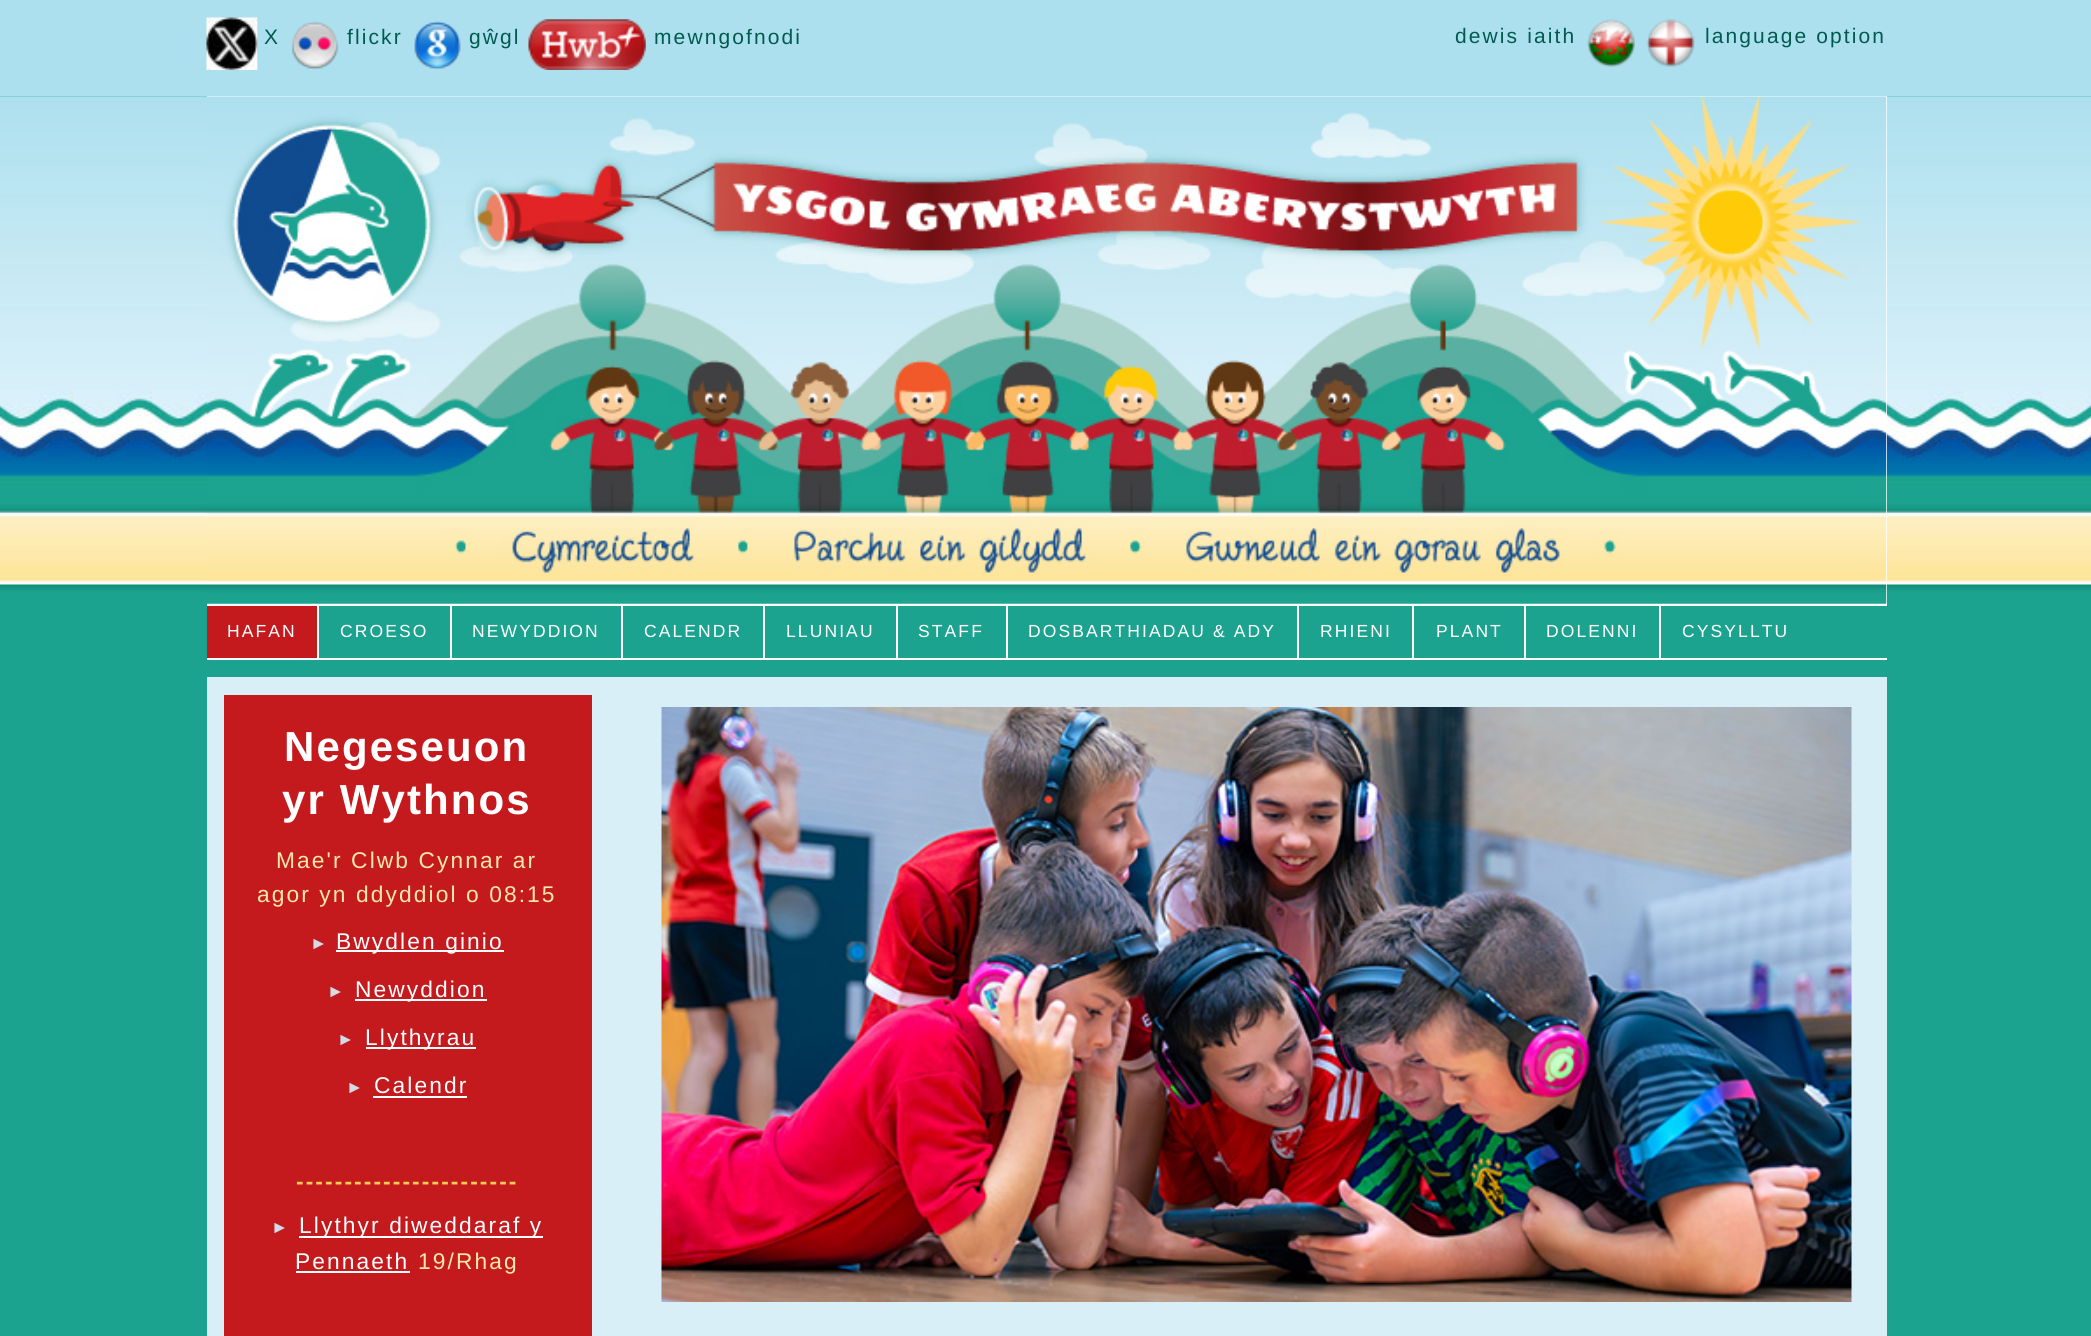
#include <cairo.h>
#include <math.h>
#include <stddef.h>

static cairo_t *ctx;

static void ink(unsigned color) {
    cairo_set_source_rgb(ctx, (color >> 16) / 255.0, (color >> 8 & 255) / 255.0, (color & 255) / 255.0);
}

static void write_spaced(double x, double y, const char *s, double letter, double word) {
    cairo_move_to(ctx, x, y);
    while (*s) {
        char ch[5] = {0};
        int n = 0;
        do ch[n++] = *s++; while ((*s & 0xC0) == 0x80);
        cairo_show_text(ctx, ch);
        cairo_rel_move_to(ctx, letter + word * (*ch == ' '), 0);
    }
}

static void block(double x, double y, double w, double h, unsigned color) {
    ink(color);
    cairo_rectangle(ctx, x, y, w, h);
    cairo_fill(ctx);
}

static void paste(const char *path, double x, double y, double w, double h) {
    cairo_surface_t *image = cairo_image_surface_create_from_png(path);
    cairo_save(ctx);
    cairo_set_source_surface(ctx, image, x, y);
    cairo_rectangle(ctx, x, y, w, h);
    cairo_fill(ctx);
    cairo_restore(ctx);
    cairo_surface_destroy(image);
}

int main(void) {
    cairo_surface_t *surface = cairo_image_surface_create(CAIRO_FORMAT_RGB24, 2091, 1336);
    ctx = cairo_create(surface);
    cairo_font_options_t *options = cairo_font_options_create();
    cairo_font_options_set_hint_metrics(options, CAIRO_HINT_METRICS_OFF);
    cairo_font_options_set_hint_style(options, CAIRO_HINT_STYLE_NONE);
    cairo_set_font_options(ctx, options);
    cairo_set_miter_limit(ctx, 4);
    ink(0x1ca390);
    cairo_paint(ctx);
    block(0, 0, 2091, 96, 0xade0ef);
    paste("pic1.png", 206, 17, 52, 53);
    cairo_select_font_face(ctx, "Liberation Sans", CAIRO_FONT_SLANT_NORMAL, CAIRO_FONT_WEIGHT_NORMAL);
    cairo_set_font_size(ctx, 21);
    ink(0x005b4e);
    write_spaced(264, 44, "X", 2.1, 0);
    paste("pic2.png", 291, 21, 48, 49);
    write_spaced(347, 44, "flickr", 2.1, 0);
    paste("pic3.png", 414, 21, 47, 49);
    write_spaced(469, 44, "gŵgl", 2.1, 0);
    paste("pic4.png", 528, 19, 118, 51);
    write_spaced(654, 44, "mewngofnodi", 2.1, 0);
    write_spaced(1455, 43, "dewis iaith", 2.1, 0);
    paste("pic5.png", 1587, 19, 48, 48);
    paste("pic6.png", 1646, 19, 49, 48);
    write_spaced(1705, 43, "language option", 2.1, 0);
    paste("pic7.png", 0, 96, 2091, 496);
    block(207, 96, 1680, 508, 0xffffff);
    paste("pic8.png", 206, 96, 1681, 508);
    block(207, 604, 1680, 2, 0xffffff);
    block(207, 658, 1680, 2, 0xffffff);
    block(317, 606, 2, 52, 0xffffff);
    block(207, 606, 110, 52, 0xc41a1e);
    cairo_set_font_size(ctx, 17.5);
    ink(0xffffff);
    write_spaced(227, 637, "HAFAN", 2.1, 0);
    block(450, 606, 2, 52, 0xffffff);
    write_spaced(340, 637, "CROESO", 2.1, 0);
    block(621, 606, 2, 52, 0xffffff);
    write_spaced(472, 637, "NEWYDDION", 2.1, 0);
    block(763, 606, 2, 52, 0xffffff);
    write_spaced(644, 637, "CALENDR", 2.1, 0);
    block(896, 606, 2, 52, 0xffffff);
    write_spaced(786, 637, "LLUNIAU", 2.1, 0);
    block(1006, 606, 2, 52, 0xffffff);
    write_spaced(918, 637, "STAFF", 2.1, 0);
    block(1297, 606, 2, 52, 0xffffff);
    write_spaced(1028, 637, "DOSBARTHIADAU & ADY", 2.1, 0);
    block(1412, 606, 2, 52, 0xffffff);
    write_spaced(1320, 637, "RHIENI", 2.1, 0);
    block(1524, 606, 2, 52, 0xffffff);
    write_spaced(1436, 637, "PLANT", 2.1, 0);
    block(1659, 606, 2, 52, 0xffffff);
    write_spaced(1546, 637, "DOLENNI", 2.1, 0);
    write_spaced(1682, 637, "CYSYLLTU", 2.1, 0);
    block(207, 677, 1680, 659, 0xd8eff7);
    block(224, 695, 368, 641, 0xc41a1e);
    cairo_select_font_face(ctx, "Liberation Sans", CAIRO_FONT_SLANT_NORMAL, CAIRO_FONT_WEIGHT_BOLD);
    cairo_set_font_size(ctx, 42);
    ink(0xffffff);
    write_spaced(284, 761, "Negeseuon", 2.1, 0);
    write_spaced(282, 814, "yr Wythnos", 2.1, 0);
    cairo_select_font_face(ctx, "Liberation Sans", CAIRO_FONT_SLANT_NORMAL, CAIRO_FONT_WEIGHT_NORMAL);
    cairo_set_font_size(ctx, 22.75);
    ink(0xfee8aa);
    write_spaced(276, 868, "Mae'r Clwb Cynnar ar", 2.1, 0);
    write_spaced(257, 902, "agor yn ddyddiol o 08:15", 2.1, 0);
    cairo_set_font_size(ctx, 17.5);
    ink(0xd3dce6);
    write_spaced(310, 949, "►", 2.1, 0);
    block(336, 950, 168, 2, 0xffffff);
    cairo_set_font_size(ctx, 22.75);
    write_spaced(336, 949, "Bwydlen ginio", 2.1, 0);
    cairo_set_font_size(ctx, 17.5);
    ink(0xd3dce6);
    write_spaced(327, 997, "►", 2.1, 0);
    block(355, 999, 132, 2, 0xffffff);
    cairo_set_font_size(ctx, 22.75);
    write_spaced(355, 997, "Newyddion", 2.1, 0);
    cairo_set_font_size(ctx, 17.5);
    ink(0xd3dce6);
    write_spaced(337, 1045, "►", 2.1, 0);
    block(366, 1047, 110, 2, 0xffffff);
    cairo_set_font_size(ctx, 22.75);
    write_spaced(365, 1045, "Llythyrau", 2.1, 0);
    cairo_set_font_size(ctx, 17.5);
    ink(0xd3dce6);
    write_spaced(346, 1093, "►", 2.1, 0);
    cairo_set_font_size(ctx, 22.75);
    ink(0xffffff);
    write_spaced(374, 1093, "Calendr", 2.1, 0);
    block(373, 1096, 94, 2, 0xffffff);
    cairo_select_font_face(ctx, "Liberation Sans", CAIRO_FONT_SLANT_NORMAL, CAIRO_FONT_WEIGHT_BOLD);
    ink(0xffcc55);
    write_spaced(296, 1189, "-----------------------", 2.1, 0);
    cairo_select_font_face(ctx, "Liberation Sans", CAIRO_FONT_SLANT_NORMAL, CAIRO_FONT_WEIGHT_NORMAL);
    cairo_set_font_size(ctx, 17.5);
    ink(0xd3dce6);
    write_spaced(271, 1233, "►", 2.1, 0);
    block(299, 1236, 244, 2, 0xffffff);
    cairo_set_font_size(ctx, 22.75);
    write_spaced(299, 1233, "Llythyr diweddaraf y", 2.1, 0);
    write_spaced(295, 1269, "Pennaeth", 2.1, 0);
    block(296, 1271, 114, 2, 0xffffff);
    ink(0xfee8aa);
    write_spaced(418, 1269, "19/Rhag", 2.1, 0);
    paste("pic9.png", 661, 707, 1191, 595);
    cairo_surface_write_to_png(surface, "screenshot.png");
    cairo_font_options_destroy(options);
    cairo_destroy(ctx);
    cairo_surface_destroy(surface);
    return 0;
}
